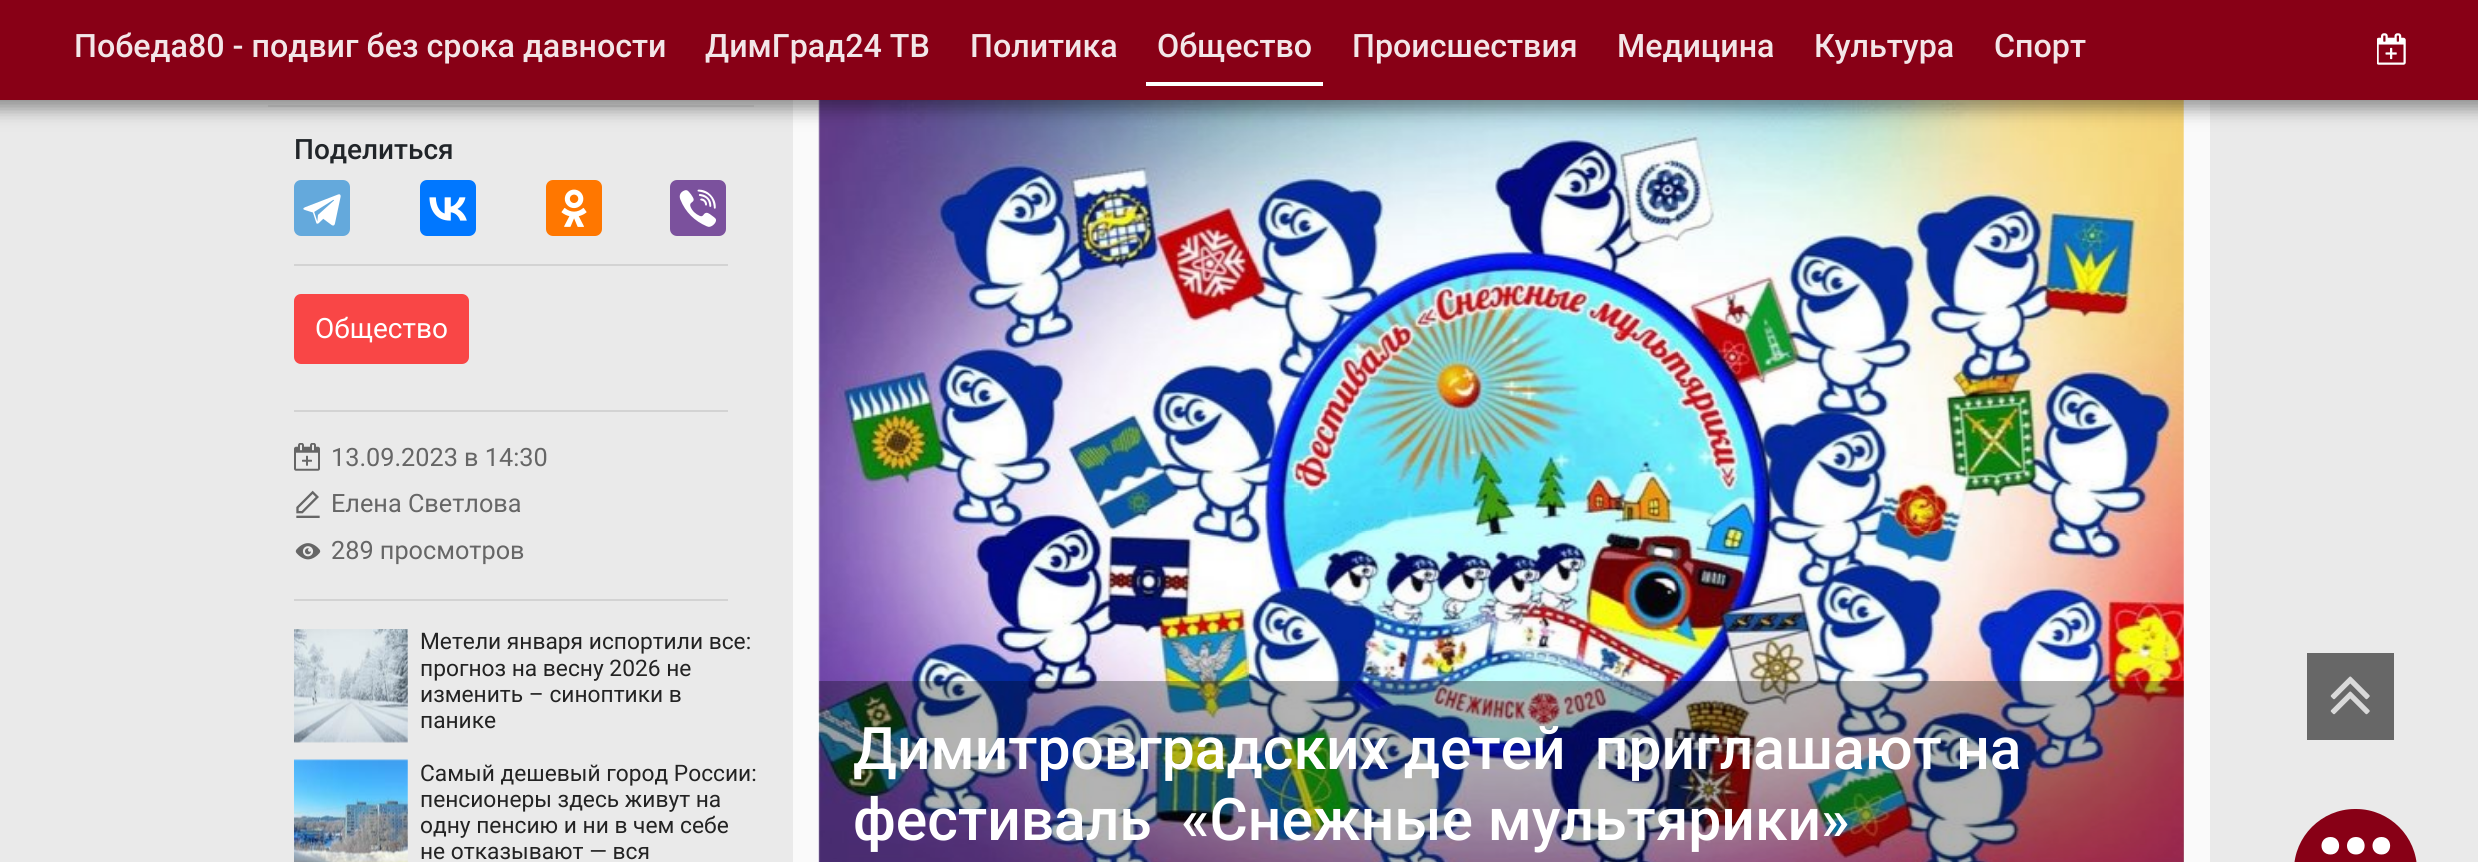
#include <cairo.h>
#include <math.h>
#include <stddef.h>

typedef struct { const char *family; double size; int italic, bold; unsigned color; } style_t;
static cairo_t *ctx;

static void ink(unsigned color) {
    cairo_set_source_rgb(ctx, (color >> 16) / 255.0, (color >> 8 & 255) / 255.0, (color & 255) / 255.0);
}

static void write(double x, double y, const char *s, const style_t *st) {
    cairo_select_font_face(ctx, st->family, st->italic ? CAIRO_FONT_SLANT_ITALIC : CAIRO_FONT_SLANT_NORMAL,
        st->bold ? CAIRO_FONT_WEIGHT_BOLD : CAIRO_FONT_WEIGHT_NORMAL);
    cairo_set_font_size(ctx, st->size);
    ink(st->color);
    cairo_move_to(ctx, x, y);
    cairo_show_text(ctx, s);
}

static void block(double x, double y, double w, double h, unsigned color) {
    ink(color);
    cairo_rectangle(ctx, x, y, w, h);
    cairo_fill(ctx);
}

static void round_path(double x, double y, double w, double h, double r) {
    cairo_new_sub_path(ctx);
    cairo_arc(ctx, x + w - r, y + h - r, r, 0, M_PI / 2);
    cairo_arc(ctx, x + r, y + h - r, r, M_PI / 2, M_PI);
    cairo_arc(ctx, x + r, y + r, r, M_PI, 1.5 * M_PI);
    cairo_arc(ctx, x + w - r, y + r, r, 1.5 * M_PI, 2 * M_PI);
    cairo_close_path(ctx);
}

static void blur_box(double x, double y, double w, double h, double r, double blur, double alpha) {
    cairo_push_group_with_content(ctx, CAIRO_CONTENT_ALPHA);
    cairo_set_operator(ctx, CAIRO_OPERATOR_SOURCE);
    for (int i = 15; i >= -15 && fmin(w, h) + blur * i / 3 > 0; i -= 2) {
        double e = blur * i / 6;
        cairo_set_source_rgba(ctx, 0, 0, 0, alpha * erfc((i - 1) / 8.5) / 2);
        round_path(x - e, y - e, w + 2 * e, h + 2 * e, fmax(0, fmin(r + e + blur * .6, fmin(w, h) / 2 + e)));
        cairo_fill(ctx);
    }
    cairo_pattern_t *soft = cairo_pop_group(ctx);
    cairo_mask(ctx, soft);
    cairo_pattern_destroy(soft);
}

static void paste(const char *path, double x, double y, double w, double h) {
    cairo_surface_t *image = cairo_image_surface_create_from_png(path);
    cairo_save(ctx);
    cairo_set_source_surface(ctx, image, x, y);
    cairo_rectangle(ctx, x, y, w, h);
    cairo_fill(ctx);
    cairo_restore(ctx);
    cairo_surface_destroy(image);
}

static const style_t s1 = {"Roboto Medium", 32.25, 0, 0, 0xf3e6e8};
static const style_t s2 = {"Roboto Medium", 28, 0, 0, 0x212529};
static const style_t s3 = {"Roboto", 28, 0, 0, 0xffffff};
static const style_t s4 = {"Roboto", 25.25, 0, 0, 0x666666};
static const style_t s5 = {"Roboto", 22.75, 0, 0, 0x232323};
static const style_t s6 = {"Roboto Medium", 58.75, 0, 0, 0xffffff};

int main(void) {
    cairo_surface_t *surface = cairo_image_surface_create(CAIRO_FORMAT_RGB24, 2478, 862);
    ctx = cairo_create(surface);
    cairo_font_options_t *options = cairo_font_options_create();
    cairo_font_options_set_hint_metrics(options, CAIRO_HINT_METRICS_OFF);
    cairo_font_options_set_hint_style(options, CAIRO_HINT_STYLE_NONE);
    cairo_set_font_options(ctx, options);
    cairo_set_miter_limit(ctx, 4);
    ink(0xeaeaea);
    cairo_paint(ctx);
    block(268, 105, 486, 2, 0xdadada);
    block(793, 100, 1417, 762, 0xfafafa);
    paste("pic11.png", 818, 100, 1366, 762);
    ink(0x000000);
    blur_box(-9, -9, 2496, 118, 0, 9, 0.4);
    block(0, 0, 2478, 100, 0x880016);
    write(74, 57, "Победа80 - подвиг без срока давности", &s1);
    write(705, 57, "ДимГрад24 ТВ", &s1);
    write(970, 57, "Политика", &s1);
    block(1146, 82, 177, 4, 0xffffff);
    write(1157, 57, "Общество", &s1);
    write(1352, 57, "Происшествия", &s1);
    write(1617, 57, "Медицина", &s1);
    write(1814, 57, "Культура", &s1);
    write(1994, 57, "Спорт", &s1);
    paste("pic1.png", 2377, 33, 29, 32);
    write(294, 159, "Поделиться", &s2);
    ink(0x64a9dc);
    round_path(294, 180, 56, 56, 7);
    cairo_fill(ctx);
    paste("pic2.png", 303, 194, 38, 32);
    ink(0x0077ff);
    round_path(420, 180, 56, 56, 7);
    cairo_fill(ctx);
    paste("pic3.png", 429, 197, 38, 24);
    ink(0xff7700);
    round_path(546, 180, 56, 56, 7);
    cairo_fill(ctx);
    paste("pic4.png", 561, 189, 26, 38);
    ink(0x7b519d);
    round_path(670, 180, 56, 56, 7);
    cairo_fill(ctx);
    paste("pic5.png", 679, 189, 37, 38);
    block(294, 264, 434, 2, 0xd3d3d3);
    ink(0xf94646);
    round_path(294, 294, 175, 70, 7);
    cairo_fill(ctx);
    write(315, 338, "Общество", &s3);
    block(294, 410, 434, 2, 0xd3d3d3);
    paste("pic6.png", 294, 443, 26, 28);
    write(331, 466, "13.09.2023 в 14:30", &s4);
    paste("pic7.png", 296, 490, 24, 28);
    write(331, 512, "Елена Светлова", &s4);
    paste("pic8.png", 295, 543, 26, 17);
    write(331, 559, "289 просмотров", &s4);
    block(294, 599, 434, 2, 0xd3d3d3);
    paste("pic9.png", 294, 629, 114, 114);
    write(420, 649, "Метели января испортили все:", &s5);
    write(420, 676, "прогноз на весну 2026 не", &s5);
    write(420, 702, "изменить – синоптики в", &s5);
    write(420, 728, "панике", &s5);
    paste("pic10.png", 294, 759, 114, 103);
    write(420, 781, "Самый дешевый город России:", &s5);
    write(420, 807, "пенсионеры здесь живут на", &s5);
    write(420, 833, "одну пенсию и ни в чем себе", &s5);
    write(420, 859, "не отказывают — вся", &s5);
    cairo_set_source_rgba(ctx, 0, 0, 0, 0.3);
    cairo_rectangle(ctx, 819, 681, 1365, 181);
    cairo_fill(ctx);
    write(853, 769, "Димитровградских детей  приглашают на", &s6);
    write(853, 840, "фестиваль  «Снежные мультярики»", &s6);
    block(2307, 653, 87, 87, 0x676767);
    paste("pic12.png", 2330, 676, 40, 39);
    ink(0x880016);
    cairo_new_path(ctx);
    cairo_move_to(ctx, 2355, 809);
    cairo_line_to(ctx, 2356, 809);
    cairo_curve_to(ctx, 2389.5, 809, 2417, 836.5, 2417, 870);
    cairo_line_to(ctx, 2417, 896);
    cairo_line_to(ctx, 2294, 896);
    cairo_line_to(ctx, 2294, 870);
    cairo_curve_to(ctx, 2294, 836.5, 2321.5, 809, 2355, 809);
    cairo_close_path(ctx);
    cairo_fill(ctx);
    ink(0xffffff);
    cairo_new_path(ctx);
    cairo_move_to(ctx, 2330.5, 854.5);
    cairo_curve_to(ctx, 2318.5, 854.5, 2318.5, 837, 2330.5, 837);
    cairo_curve_to(ctx, 2342, 837, 2342, 854.5, 2330.5, 854.5);
    cairo_close_path(ctx);
    cairo_move_to(ctx, 2356, 854.5);
    cairo_curve_to(ctx, 2344, 854.5, 2344, 837, 2356, 837);
    cairo_curve_to(ctx, 2367.5, 837, 2367.5, 854.5, 2356, 854.5);
    cairo_close_path(ctx);
    cairo_fill(ctx);
    cairo_new_path(ctx);
    cairo_move_to(ctx, 2381.5, 854.5);
    cairo_curve_to(ctx, 2369.5, 854.5, 2369.5, 837, 2381.5, 837);
    cairo_curve_to(ctx, 2393, 837, 2393, 854.5, 2381.5, 854.5);
    cairo_close_path(ctx);
    cairo_fill(ctx);
    cairo_surface_write_to_png(surface, "screenshot.png");
    cairo_font_options_destroy(options);
    cairo_destroy(ctx);
    cairo_surface_destroy(surface);
    return 0;
}
